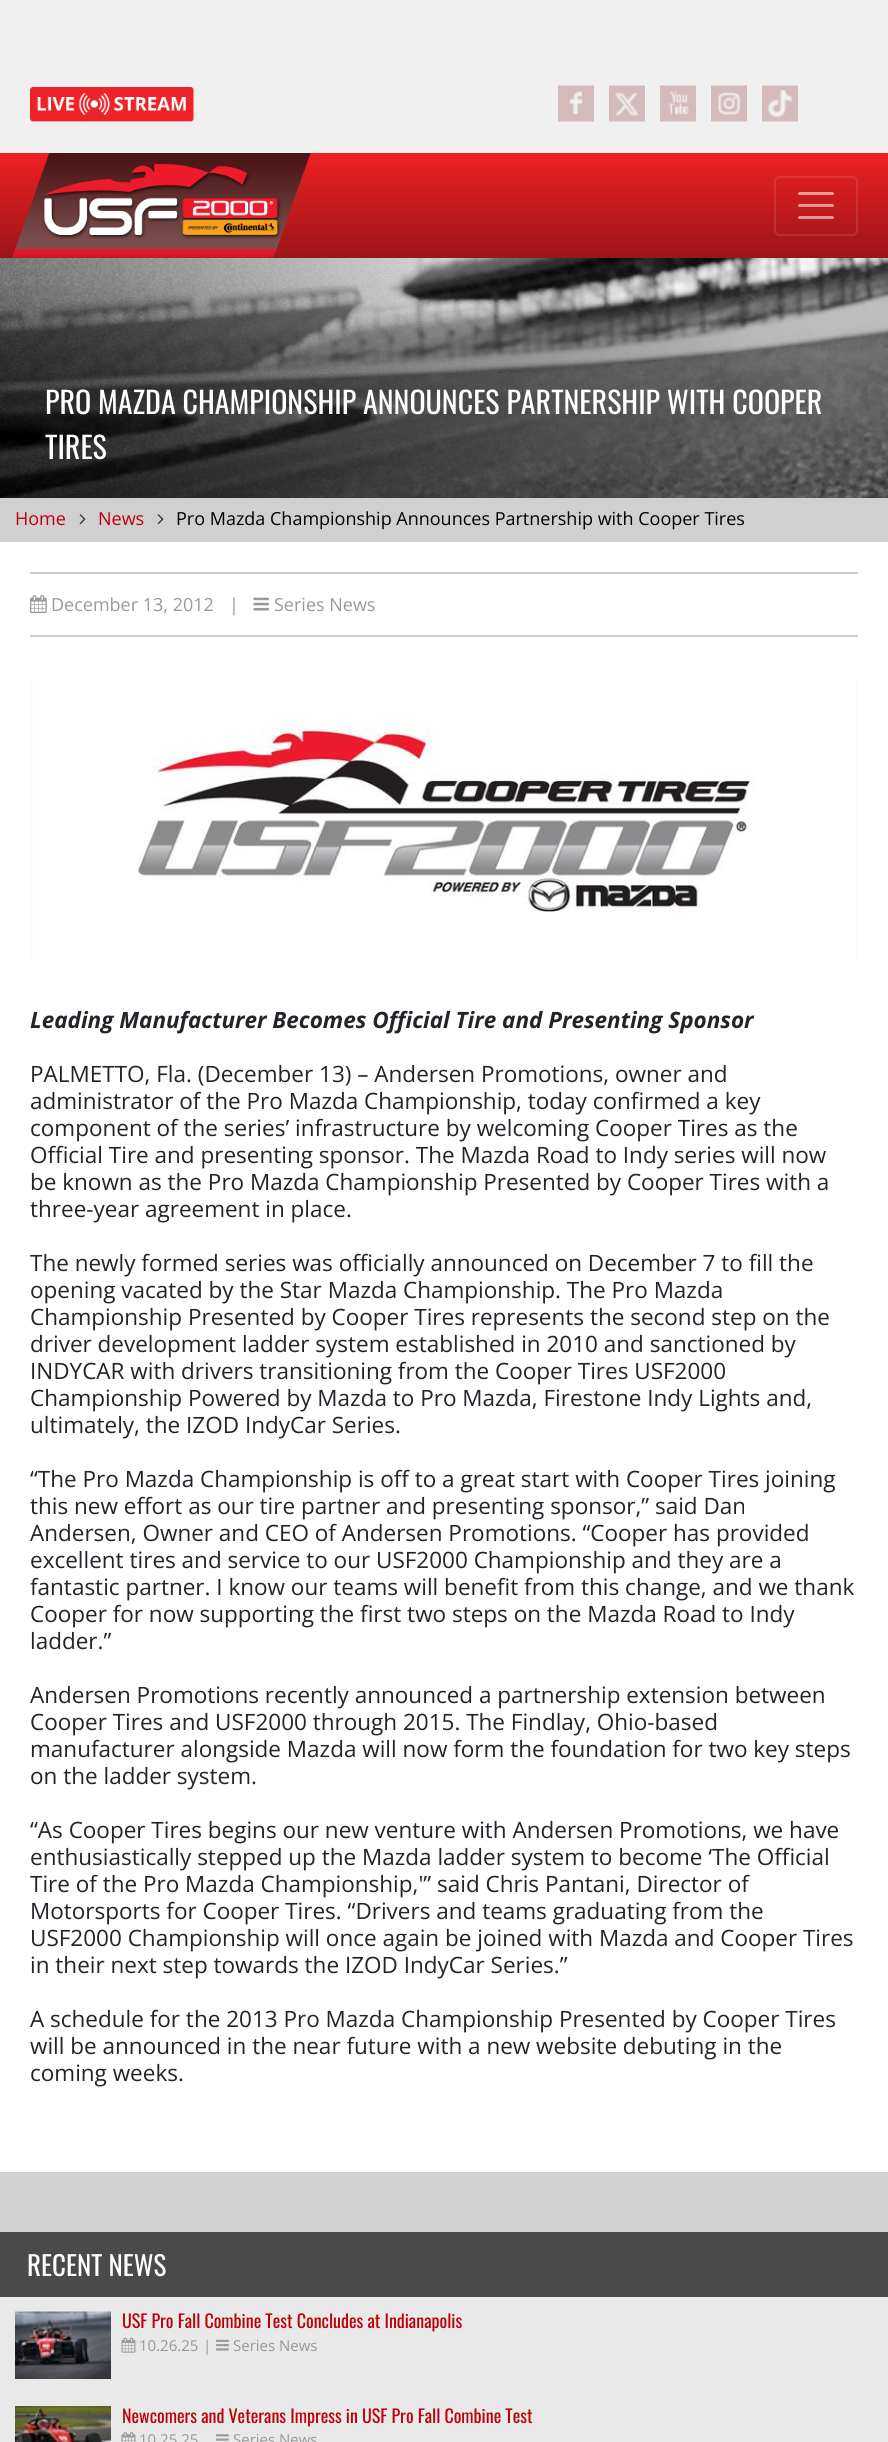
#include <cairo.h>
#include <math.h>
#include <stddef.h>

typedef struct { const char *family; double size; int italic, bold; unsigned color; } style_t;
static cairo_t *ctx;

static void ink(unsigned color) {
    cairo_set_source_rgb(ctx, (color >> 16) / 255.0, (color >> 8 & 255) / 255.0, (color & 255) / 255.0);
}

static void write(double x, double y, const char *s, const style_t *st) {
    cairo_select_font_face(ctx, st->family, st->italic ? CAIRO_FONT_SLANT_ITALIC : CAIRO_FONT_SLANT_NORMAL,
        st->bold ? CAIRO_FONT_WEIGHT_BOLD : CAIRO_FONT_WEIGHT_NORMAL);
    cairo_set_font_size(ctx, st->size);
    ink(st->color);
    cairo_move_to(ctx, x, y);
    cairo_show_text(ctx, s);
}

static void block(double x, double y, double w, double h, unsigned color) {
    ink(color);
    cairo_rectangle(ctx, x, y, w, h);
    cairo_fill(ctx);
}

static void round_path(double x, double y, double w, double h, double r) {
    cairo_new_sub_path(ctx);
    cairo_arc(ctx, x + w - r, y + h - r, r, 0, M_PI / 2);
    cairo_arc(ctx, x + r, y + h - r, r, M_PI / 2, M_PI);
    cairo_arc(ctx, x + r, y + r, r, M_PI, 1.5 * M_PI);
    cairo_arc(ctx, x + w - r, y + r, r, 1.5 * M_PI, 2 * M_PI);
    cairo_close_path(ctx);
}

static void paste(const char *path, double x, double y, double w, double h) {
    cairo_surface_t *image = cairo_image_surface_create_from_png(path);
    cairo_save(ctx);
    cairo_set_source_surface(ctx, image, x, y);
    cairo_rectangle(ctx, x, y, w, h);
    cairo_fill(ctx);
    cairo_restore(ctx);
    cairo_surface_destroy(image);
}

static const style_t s1 = {"Oswald", 30, 0, 0, 0xffffff};
static const style_t s2 = {"Open Sans", 18, 0, 0, 0xbe0004};
static const style_t s3 = {"Open Sans", 18, 0, 0, 0x000000};
static const style_t s4 = {"Open Sans", 18, 0, 0, 0x999999};
static const style_t s5 = {"Open Sans", 22.5, 1, 1, 0x212529};
static const style_t s6 = {"Open Sans", 22.5, 0, 0, 0x212529};
static const style_t s7 = {"Oswald", 27, 0, 0, 0xffffff};
static const style_t s8 = {"Oswald", 18, 0, 0, 0xbe0004};
static const style_t s9 = {"Open Sans", 15, 0, 0, 0x999999};

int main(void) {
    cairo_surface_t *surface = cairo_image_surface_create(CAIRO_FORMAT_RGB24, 888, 2442);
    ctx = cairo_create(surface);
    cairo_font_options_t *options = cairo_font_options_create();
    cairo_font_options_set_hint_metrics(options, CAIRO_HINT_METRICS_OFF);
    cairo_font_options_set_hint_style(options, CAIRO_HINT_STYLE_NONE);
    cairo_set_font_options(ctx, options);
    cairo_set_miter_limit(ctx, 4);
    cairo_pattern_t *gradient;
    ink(0xf0f0f0);
    cairo_paint(ctx);
    paste("pic1.png", 30, 87, 164, 35);
    paste("pic2.png", 558, 85, 36, 37);
    paste("pic3.png", 609, 85, 36, 37);
    paste("pic4.png", 660, 85, 36, 37);
    paste("pic5.png", 711, 85, 36, 37);
    paste("pic6.png", 762, 85, 36, 37);
    gradient = cairo_pattern_create_linear(444, 153, 444, 258);
    cairo_pattern_add_color_stop_rgba(gradient, 0, 0.933, 0.125, 0.141, 1);
    cairo_pattern_add_color_stop_rgba(gradient, 1, 0.612, 0.082, 0.09, 1);
    cairo_set_source(ctx, gradient);
    cairo_pattern_destroy(gradient);
    cairo_rectangle(ctx, 0, 153, 888, 105);
    cairo_fill(ctx);
    paste("pic7.png", 12, 153, 299, 105);
    round_path(775, 177, 82, 58, 5);
    cairo_set_source_rgba(ctx, 1, 1, 1, 0.1);
    cairo_stroke(ctx);
    cairo_new_path(ctx);
    cairo_move_to(ctx, 799.5, 193.5);
    cairo_line_to(ctx, 832.5, 193.5);
    cairo_move_to(ctx, 799.5, 205.5);
    cairo_line_to(ctx, 832.5, 205.5);
    cairo_move_to(ctx, 799.5, 217.5);
    cairo_line_to(ctx, 832.5, 217.5);
    cairo_set_source_rgba(ctx, 1, 1, 1, 0.55);
    cairo_set_line_width(ctx, 3);
    cairo_set_line_cap(ctx, CAIRO_LINE_CAP_ROUND);
    cairo_stroke(ctx);
    block(0, 498, 888, 44, 0xd0d0d0);
    paste("pic8.png", 0, 258, 888, 240);
    write(45, 414, "PRO MAZDA CHAMPIONSHIP ANNOUNCES PARTNERSHIP WITH COOPER", &s1);
    write(45, 459, "TIRES", &s1);
    write(15, 525, "Home", &s2);
    paste("pic9.png", 79, 514, 7, 11);
    write(98, 525, "News", &s2);
    paste("pic9.png", 157, 514, 7, 11);
    write(176, 525, "Pro Mazda Championship Announces Partnership with Cooper Tires", &s3);
    block(0, 2172, 888, 60, 0xd2d2d2);
    block(0, 542, 888, 1630, 0xffffff);
    block(30, 572, 828, 2, 0xcccccc);
    block(30, 635, 828, 2, 0xcccccc);
    paste("pic10.png", 30, 595, 17, 19);
    write(51, 611, "December 13, 2012", &s4);
    write(229, 611, "|", &s4);
    paste("pic11.png", 253, 597, 16, 14);
    write(274, 611, "Series News", &s4);
    paste("pic12.png", 30, 681, 828, 279);
    write(30, 1028, "Leading Manufacturer Becomes Official Tire and Presenting Sponsor", &s5);
    write(30, 1082, "PALMETTO, Fla. (December 13) – Andersen Promotions, owner and", &s6);
    write(30, 1109, "administrator of the Pro Mazda Championship, today confirmed a key", &s6);
    write(30, 1136, "component of the series’ infrastructure by welcoming Cooper Tires as the", &s6);
    write(30, 1163, "Official Tire and presenting sponsor. The Mazda Road to Indy series will now", &s6);
    write(30, 1190, "be known as the Pro Mazda Championship Presented by Cooper Tires with a", &s6);
    write(30, 1217, "three-year agreement in place.", &s6);
    write(30, 1271, "The newly formed series was officially announced on December 7 to fill the", &s6);
    write(30, 1298, "opening vacated by the Star Mazda Championship. The Pro Mazda", &s6);
    write(30, 1325, "Championship Presented by Cooper Tires represents the second step on the", &s6);
    write(30, 1352, "driver development ladder system established in 2010 and sanctioned by", &s6);
    write(30, 1379, "INDYCAR with drivers transitioning from the Cooper Tires USF2000", &s6);
    write(30, 1406, "Championship Powered by Mazda to Pro Mazda, Firestone Indy Lights and,", &s6);
    write(30, 1433, "ultimately, the IZOD IndyCar Series.", &s6);
    write(30, 1487, "“The Pro Mazda Championship is off to a great start with Cooper Tires joining", &s6);
    write(30, 1514, "this new effort as our tire partner and presenting sponsor,” said Dan", &s6);
    write(30, 1541, "Andersen, Owner and CEO of Andersen Promotions. “Cooper has provided", &s6);
    write(30, 1568, "excellent tires and service to our USF2000 Championship and they are a", &s6);
    write(30, 1595, "fantastic partner. I know our teams will benefit from this change, and we thank", &s6);
    write(30, 1622, "Cooper for now supporting the first two steps on the Mazda Road to Indy", &s6);
    write(30, 1649, "ladder.”", &s6);
    write(30, 1703, "Andersen Promotions recently announced a partnership extension between", &s6);
    write(30, 1730, "Cooper Tires and USF2000 through 2015. The Findlay, Ohio-based", &s6);
    write(30, 1757, "manufacturer alongside Mazda will now form the foundation for two key steps", &s6);
    write(30, 1784, "on the ladder system.", &s6);
    write(30, 1838, "“As Cooper Tires begins our new venture with Andersen Promotions, we have", &s6);
    write(30, 1865, "enthusiastically stepped up the Mazda ladder system to become ‘The Official", &s6);
    write(30, 1892, "Tire of the Pro Mazda Championship,'” said Chris Pantani, Director of", &s6);
    write(30, 1919, "Motorsports for Cooper Tires. “Drivers and teams graduating from the", &s6);
    write(30, 1946, "USF2000 Championship will once again be joined with Mazda and Cooper Tires", &s6);
    write(30, 1973, "in their next step towards the IZOD IndyCar Series.”", &s6);
    write(30, 2027, "A schedule for the 2013 Pro Mazda Championship Presented by Cooper Tires", &s6);
    write(30, 2054, "will be announced in the near future with a new website debuting in the", &s6);
    write(30, 2081, "coming weeks.", &s6);
    block(0, 2232, 888, 65, 0x4a4a4a);
    write(27, 2276, "RECENT NEWS", &s7);
    block(0, 2297, 888, 145, 0xe9e9e9);
    paste("pic13.png", 15, 2311, 96, 68);
    write(122, 2328, "USF Pro Fall Combine Test Concludes at Indianapolis", &s8);
    paste("pic14.png", 121, 2337, 15, 16);
    write(139, 2351, "10.26.25", &s9);
    write(203, 2351, "|", &s9);
    paste("pic15.png", 216, 2339, 13, 12);
    write(233, 2351, "Series News", &s9);
    paste("pic16.png", 15, 2406, 96, 36);
    write(122, 2423, "Newcomers and Veterans Impress in USF Pro Fall Combine Test", &s8);
    paste("pic17.png", 121, 2432, 15, 10);
    write(139, 2445, "10.25.25", &s9);
    paste("pic18.png", 216, 2434, 13, 7);
    write(233, 2445, "Series News", &s9);
    cairo_surface_write_to_png(surface, "screenshot.png");
    cairo_font_options_destroy(options);
    cairo_destroy(ctx);
    cairo_surface_destroy(surface);
    return 0;
}
